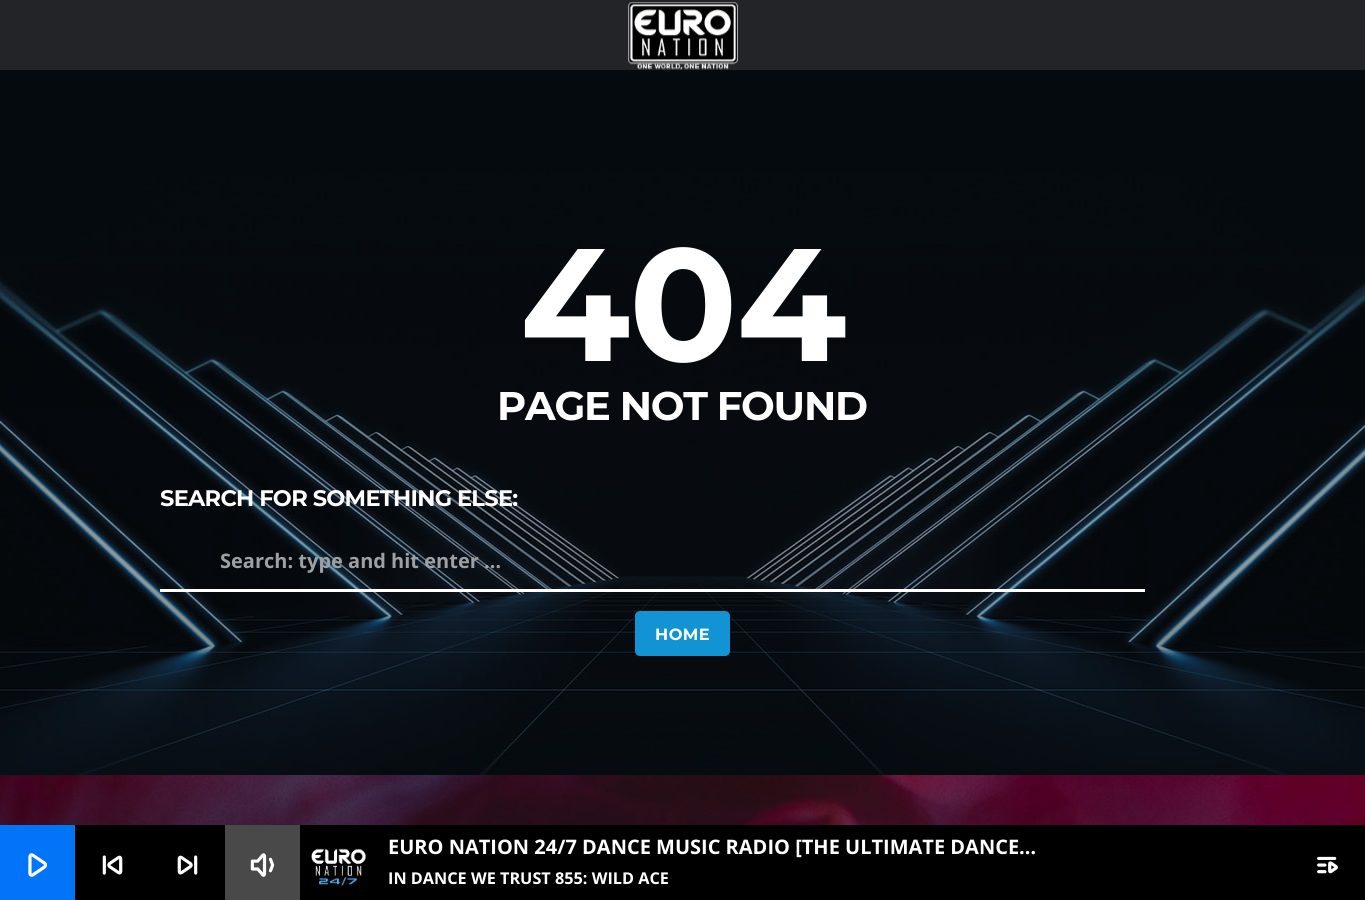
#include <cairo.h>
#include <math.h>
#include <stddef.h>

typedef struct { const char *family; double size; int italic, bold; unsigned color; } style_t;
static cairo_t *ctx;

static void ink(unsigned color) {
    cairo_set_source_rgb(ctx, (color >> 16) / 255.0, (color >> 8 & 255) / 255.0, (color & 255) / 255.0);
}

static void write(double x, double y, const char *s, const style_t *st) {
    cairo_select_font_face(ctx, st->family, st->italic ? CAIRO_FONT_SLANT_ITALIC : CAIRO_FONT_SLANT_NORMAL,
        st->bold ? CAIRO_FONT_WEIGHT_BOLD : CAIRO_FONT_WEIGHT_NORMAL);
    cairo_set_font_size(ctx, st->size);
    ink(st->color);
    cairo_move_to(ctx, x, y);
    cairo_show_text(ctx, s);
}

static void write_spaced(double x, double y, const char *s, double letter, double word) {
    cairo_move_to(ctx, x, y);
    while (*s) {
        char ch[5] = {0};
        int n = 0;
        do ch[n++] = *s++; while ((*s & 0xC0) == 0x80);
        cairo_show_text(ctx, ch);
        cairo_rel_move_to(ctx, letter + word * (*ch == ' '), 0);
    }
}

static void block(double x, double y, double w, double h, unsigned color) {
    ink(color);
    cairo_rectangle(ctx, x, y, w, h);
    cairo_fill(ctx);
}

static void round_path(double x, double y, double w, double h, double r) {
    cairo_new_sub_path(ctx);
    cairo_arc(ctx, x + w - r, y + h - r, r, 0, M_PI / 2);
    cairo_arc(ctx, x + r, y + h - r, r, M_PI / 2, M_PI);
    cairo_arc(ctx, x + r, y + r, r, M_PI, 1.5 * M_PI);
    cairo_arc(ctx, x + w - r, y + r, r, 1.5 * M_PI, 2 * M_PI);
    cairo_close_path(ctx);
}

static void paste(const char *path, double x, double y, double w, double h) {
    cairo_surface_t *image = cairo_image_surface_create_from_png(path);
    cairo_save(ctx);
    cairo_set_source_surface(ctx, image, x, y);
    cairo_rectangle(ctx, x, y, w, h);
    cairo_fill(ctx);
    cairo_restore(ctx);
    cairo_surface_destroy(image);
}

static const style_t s1 = {"Open Sans", 20, 0, 1, 0x9ea1a4};
static const style_t s2 = {"Open Sans", 20, 0, 1, 0xffffff};
static const style_t s3 = {"Open Sans", 16.25, 0, 1, 0xffffff};

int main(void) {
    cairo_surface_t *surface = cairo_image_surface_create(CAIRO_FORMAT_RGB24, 1365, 900);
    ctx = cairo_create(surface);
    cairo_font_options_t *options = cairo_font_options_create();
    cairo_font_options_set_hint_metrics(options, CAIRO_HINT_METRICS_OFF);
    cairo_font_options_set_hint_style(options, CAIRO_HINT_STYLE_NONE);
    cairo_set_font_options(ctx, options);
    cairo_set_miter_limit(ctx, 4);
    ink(0xffffff);
    cairo_paint(ctx);
    block(0, 0, 1365, 70, 0x232428);
    paste("pic1.png", 628, 2, 110, 68);
    paste("pic2.png", 0, 70, 1365, 705);
    cairo_select_font_face(ctx, "Montserrat", CAIRO_FONT_SLANT_NORMAL, CAIRO_FONT_WEIGHT_BOLD);
    cairo_set_font_size(ctx, 160);
    ink(0xffffff);
    write_spaced(520, 361, "404", -1.25, 0);
    cairo_set_font_size(ctx, 40);
    write_spaced(497, 420, "PAGE NOT FOUND", -1.25, 0);
    cairo_set_font_size(ctx, 22.5);
    write_spaced(160, 506, "SEARCH FOR SOMETHING ELSE:", -0.7, 0);
    block(160, 589, 985, 3, 0xffffff);
    write(220, 568, "Search: type and hit enter …", &s1);
    ink(0x1193d4);
    round_path(635, 611, 95, 45, 5);
    cairo_fill(ctx);
    cairo_select_font_face(ctx, "Montserrat", CAIRO_FONT_SLANT_NORMAL, CAIRO_FONT_WEIGHT_BOLD);
    cairo_set_font_size(ctx, 16.25);
    ink(0xffffff);
    write_spaced(655, 640, "HOME", 0.5, 0);
    paste("pic3.png", 0, 775, 1365, 50);
    block(75, 825, 1290, 75, 0x000000);
    block(0, 825, 75, 75, 0x0274f7);
    paste("pic4.png", 28, 853, 20, 24);
    paste("pic5.png", 102, 855, 21, 20);
    paste("pic6.png", 177, 855, 21, 20);
    block(225, 825, 75, 75, 0x494949);
    paste("pic7.png", 250, 853, 25, 24);
    paste("pic8.png", 311, 848, 55, 38);
    write(388, 854, "EURO NATION 24/7 DANCE MUSIC RADIO [THE ULTIMATE DANCE…", &s2);
    write(388, 884, "IN DANCE WE TRUST 855: WILD ACE", &s3);
    paste("pic9.png", 1317, 856, 21, 18);
    cairo_surface_write_to_png(surface, "screenshot.png");
    cairo_font_options_destroy(options);
    cairo_destroy(ctx);
    cairo_surface_destroy(surface);
    return 0;
}
